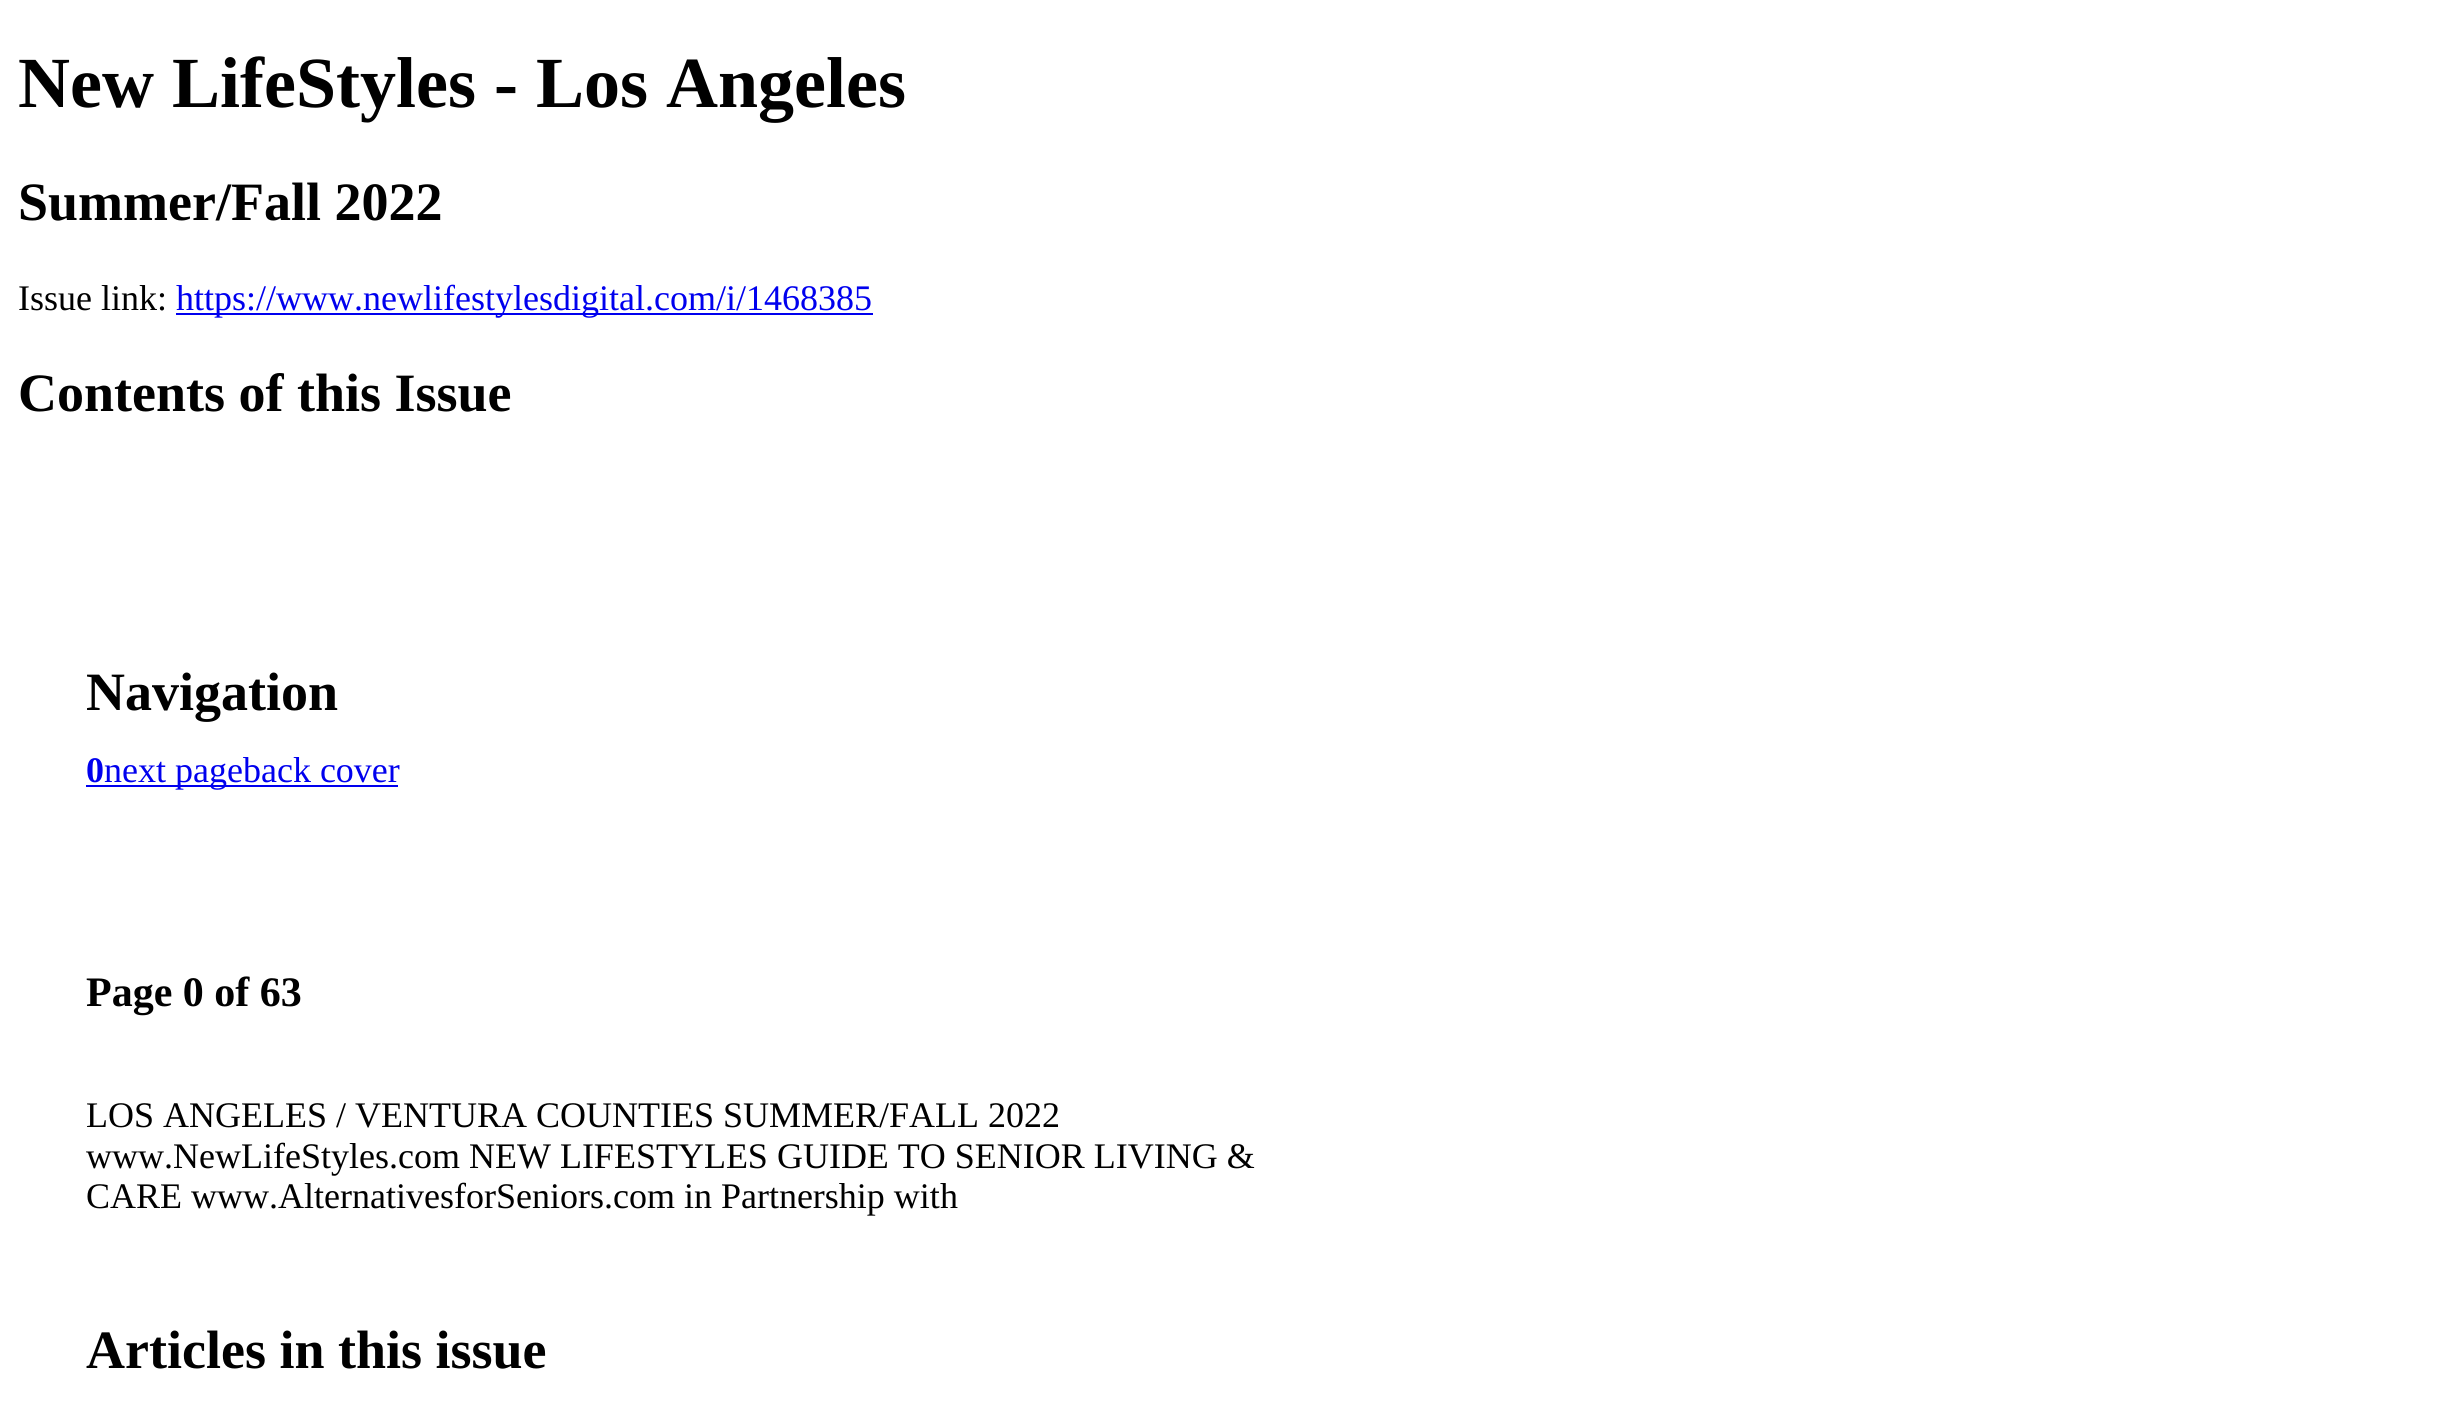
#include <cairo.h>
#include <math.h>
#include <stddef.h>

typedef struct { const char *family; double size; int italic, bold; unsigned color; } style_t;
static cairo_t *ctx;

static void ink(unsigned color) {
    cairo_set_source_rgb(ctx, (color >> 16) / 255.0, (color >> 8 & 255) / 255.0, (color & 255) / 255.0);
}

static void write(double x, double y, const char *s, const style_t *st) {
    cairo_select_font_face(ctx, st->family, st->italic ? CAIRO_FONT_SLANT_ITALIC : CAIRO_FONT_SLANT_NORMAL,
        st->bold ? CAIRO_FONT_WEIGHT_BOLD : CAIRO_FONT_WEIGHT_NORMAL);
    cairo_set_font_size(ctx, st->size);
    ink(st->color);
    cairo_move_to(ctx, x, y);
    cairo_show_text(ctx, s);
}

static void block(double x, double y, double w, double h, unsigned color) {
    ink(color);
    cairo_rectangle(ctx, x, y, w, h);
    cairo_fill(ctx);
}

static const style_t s1 = {"Liberation Serif", 72, 0, 1, 0x000000};
static const style_t s2 = {"Liberation Serif", 54, 0, 1, 0x000000};
static const style_t s3 = {"Liberation Serif", 36, 0, 0, 0x000000};
static const style_t s4 = {"Liberation Serif", 36, 0, 0, 0x0000ee};
static const style_t s5 = {"Liberation Serif", 36, 0, 1, 0x0000ee};
static const style_t s6 = {"Liberation Serif", 42, 0, 1, 0x000000};

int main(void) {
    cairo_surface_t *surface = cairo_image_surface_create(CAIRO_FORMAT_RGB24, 2462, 1418);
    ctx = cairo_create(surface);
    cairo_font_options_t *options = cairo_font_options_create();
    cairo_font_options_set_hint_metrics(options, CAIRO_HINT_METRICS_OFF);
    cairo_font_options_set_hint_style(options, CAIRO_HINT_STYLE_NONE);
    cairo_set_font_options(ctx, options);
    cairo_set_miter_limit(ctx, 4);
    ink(0xffffff);
    cairo_paint(ctx);
    write(18, 107, "New LifeStyles - Los Angeles", &s1);
    write(18, 220, "Summer/Fall 2022", &s2);
    write(18, 310, "Issue link:", &s3);
    block(176, 313, 697, 2, 0x0000ee);
    write(176, 310, "https://www.newlifestylesdigital.com/i/1468385", &s4);
    write(18, 411, "Contents of this Issue", &s2);
    write(86, 710, "Navigation", &s2);
    write(86, 782, "0", &s5);
    block(86, 785, 312, 2, 0x0000ee);
    write(104, 782, "next pageback cover", &s4);
    write(86, 1006, "Page 0 of 63", &s6);
    write(86, 1127, "LOS ANGELES / VENTURA COUNTIES SUMMER/FALL 2022", &s3);
    write(86, 1168, "www.NewLifeStyles.com NEW LIFESTYLES GUIDE TO SENIOR LIVING &", &s3);
    write(86, 1208, "CARE www.AlternativesforSeniors.com in Partnership with", &s3);
    write(86, 1368, "Articles in this issue", &s2);
    cairo_surface_write_to_png(surface, "screenshot.png");
    cairo_font_options_destroy(options);
    cairo_destroy(ctx);
    cairo_surface_destroy(surface);
    return 0;
}
